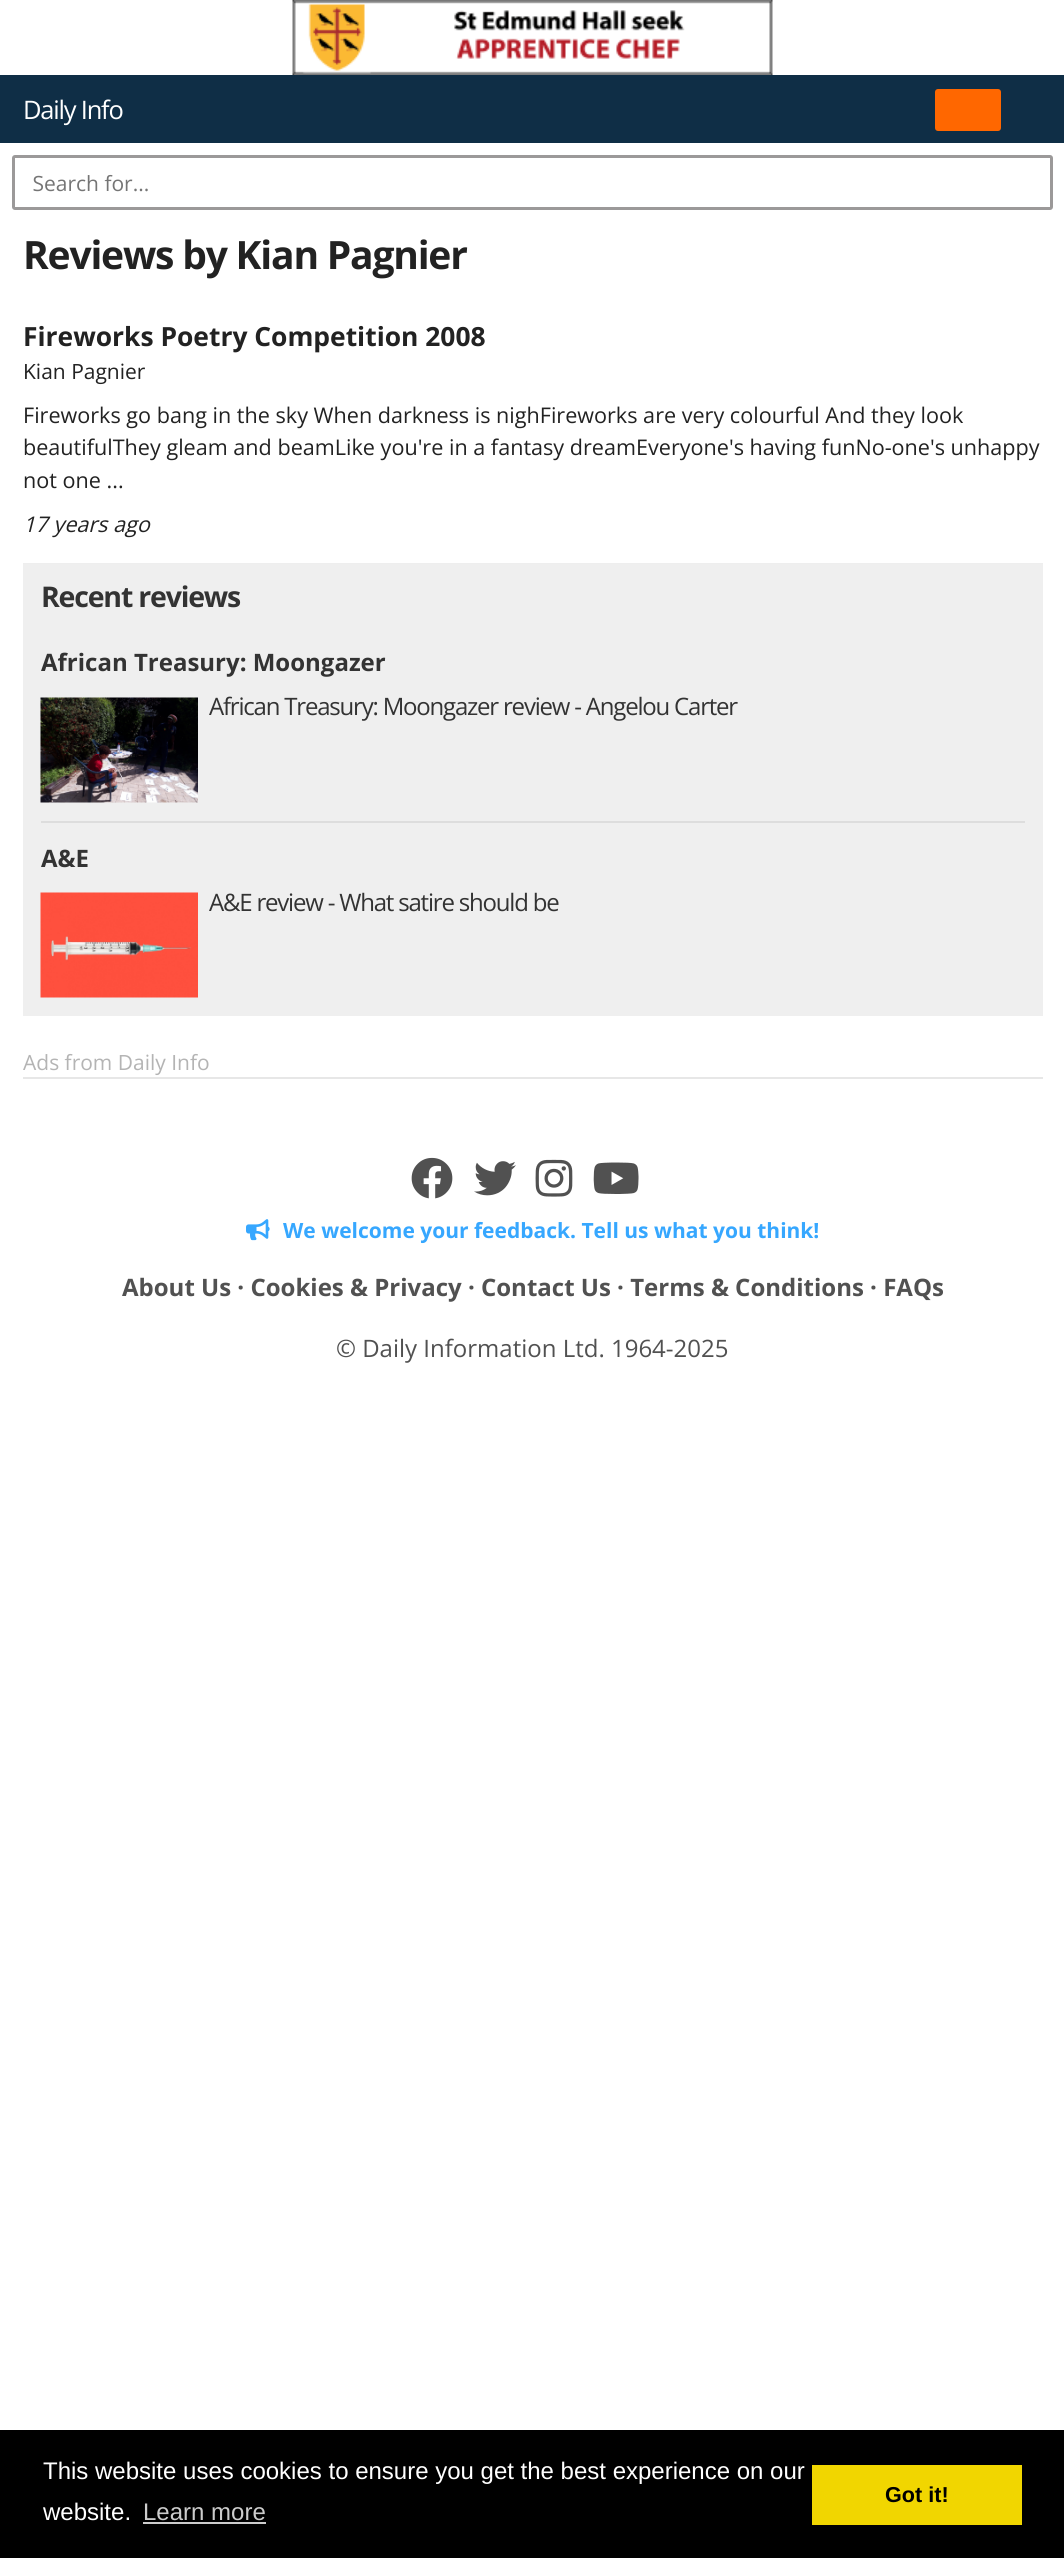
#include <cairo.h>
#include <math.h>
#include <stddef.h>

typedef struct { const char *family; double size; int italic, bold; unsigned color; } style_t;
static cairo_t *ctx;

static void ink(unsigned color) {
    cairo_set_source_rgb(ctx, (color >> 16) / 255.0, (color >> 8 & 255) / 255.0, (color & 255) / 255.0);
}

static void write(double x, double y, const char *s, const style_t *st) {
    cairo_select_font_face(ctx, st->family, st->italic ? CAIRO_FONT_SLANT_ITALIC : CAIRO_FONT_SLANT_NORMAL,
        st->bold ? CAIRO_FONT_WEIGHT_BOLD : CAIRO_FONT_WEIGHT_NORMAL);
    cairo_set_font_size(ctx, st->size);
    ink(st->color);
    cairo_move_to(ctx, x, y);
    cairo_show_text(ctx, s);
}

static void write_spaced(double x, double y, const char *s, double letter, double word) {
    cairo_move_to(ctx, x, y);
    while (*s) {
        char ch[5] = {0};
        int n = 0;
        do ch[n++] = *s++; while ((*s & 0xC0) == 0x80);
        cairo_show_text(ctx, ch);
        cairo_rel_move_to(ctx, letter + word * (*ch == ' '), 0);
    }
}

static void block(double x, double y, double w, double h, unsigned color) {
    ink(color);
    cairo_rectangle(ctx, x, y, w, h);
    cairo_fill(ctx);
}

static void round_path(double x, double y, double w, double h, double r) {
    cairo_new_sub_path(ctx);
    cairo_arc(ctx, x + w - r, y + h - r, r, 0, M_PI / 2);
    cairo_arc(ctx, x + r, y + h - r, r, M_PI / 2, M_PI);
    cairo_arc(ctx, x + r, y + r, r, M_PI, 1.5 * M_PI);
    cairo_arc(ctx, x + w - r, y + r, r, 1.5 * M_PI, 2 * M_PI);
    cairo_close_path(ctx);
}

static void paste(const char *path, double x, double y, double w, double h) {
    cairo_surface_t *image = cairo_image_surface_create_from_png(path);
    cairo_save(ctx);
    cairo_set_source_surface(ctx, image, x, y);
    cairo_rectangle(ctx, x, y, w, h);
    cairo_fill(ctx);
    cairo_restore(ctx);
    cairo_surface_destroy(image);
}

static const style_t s1 = {"Open Sans", 21, 0, 0, 0x757575};
static const style_t s2 = {"Open Sans", 26.4, 0, 1, 0x222222};
static const style_t s3 = {"Open Sans", 21, 0, 0, 0x222222};
static const style_t s4 = {"Open Sans", 21.6, 0, 0, 0x222222};
static const style_t s5 = {"Open Sans", 21.6, 1, 0, 0x222222};
static const style_t s6 = {"Open Sans", 24, 0, 1, 0x333333};
static const style_t s7 = {"Open Sans", 21, 0, 0, 0xb4b4b4};
static const style_t s8 = {"Open Sans", 21, 0, 1, 0x36a7ff};
static const style_t s9 = {"Open Sans", 24, 0, 1, 0x515151};
static const style_t s10 = {"Open Sans", 24, 0, 0, 0x515151};
static const style_t s11 = {"Liberation Sans", 24, 0, 0, 0xffffff};
static const style_t s12 = {"Liberation Sans", 24, 0, 0, 0xcccccc};
static const style_t s13 = {"Liberation Sans", 21.6, 0, 1, 0x000000};

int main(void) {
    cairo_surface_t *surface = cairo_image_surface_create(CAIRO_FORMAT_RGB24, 1064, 2558);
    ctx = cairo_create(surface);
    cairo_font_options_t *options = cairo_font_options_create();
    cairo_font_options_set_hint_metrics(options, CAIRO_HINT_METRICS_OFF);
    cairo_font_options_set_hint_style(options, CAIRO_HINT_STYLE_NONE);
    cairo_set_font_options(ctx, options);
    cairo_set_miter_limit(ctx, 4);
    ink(0xffffff);
    cairo_paint(ctx);
    paste("pic1.png", 292, 0, 481, 75);
    block(0, 75, 1064, 68, 0x0f2e46);
    cairo_select_font_face(ctx, "Open Sans", CAIRO_FONT_SLANT_NORMAL, CAIRO_FONT_WEIGHT_NORMAL);
    cairo_set_font_size(ctx, 25.5);
    ink(0xffffff);
    write_spaced(23, 119, "Daily Info", -1.2, 0);
    ink(0xff6700);
    round_path(935, 89, 66, 42, 3);
    cairo_fill(ctx);
    round_path(13.5, 156.5, 1038, 52, 1.5);
    ink(0x9b9999);
    cairo_set_line_width(ctx, 3);
    cairo_stroke(ctx);
    write(27, 191, " Search for...", &s1);
    cairo_select_font_face(ctx, "Open Sans", CAIRO_FONT_SLANT_NORMAL, CAIRO_FONT_WEIGHT_BOLD);
    cairo_set_font_size(ctx, 39);
    ink(0x222222);
    write_spaced(23, 269, "Reviews by Kian Pagnier", -1.2, 0);
    block(23, 563, 1020, 1, 0xeeeeee);
    write(23, 346, "Fireworks Poetry Competition 2008", &s2);
    write(23, 379, "Kian Pagnier", &s3);
    write(23, 423, "Fireworks go bang in the sky When darkness is nighFireworks are very colourful And they look", &s4);
    write(23, 455, "beautifulThey gleam and beamLike you're in a fantasy dreamEveryone's having funNo-one's unhappy", &s4);
    write(23, 488, "not one ...", &s4);
    write(23, 532, "17 years ago", &s5);
    block(23, 564, 1020, 452, 0xefefef);
    cairo_select_font_face(ctx, "Open Sans", CAIRO_FONT_SLANT_NORMAL, CAIRO_FONT_WEIGHT_BOLD);
    cairo_set_font_size(ctx, 28.5);
    ink(0x333333);
    write_spaced(41, 607, "Recent reviews", -1.2, 0);
    block(41, 821, 984, 2, 0xdddddd);
    write(41, 671, "African Treasury: Moongazer", &s6);
    paste("pic2.png", 40, 697, 158, 106);
    cairo_select_font_face(ctx, "Open Sans", CAIRO_FONT_SLANT_NORMAL, CAIRO_FONT_WEIGHT_NORMAL);
    write_spaced(209, 715, "African Treasury: Moongazer review - Angelou Carter", -1.2, 0);
    write(41, 867, "A&E", &s6);
    paste("pic3.png", 40, 892, 158, 106);
    cairo_select_font_face(ctx, "Open Sans", CAIRO_FONT_SLANT_NORMAL, CAIRO_FONT_WEIGHT_NORMAL);
    write_spaced(209, 911, "A&E review - What satire should be", -1.2, 0);
    block(23, 1077, 1020, 2, 0xe7e7e7);
    write(23, 1070, "Ads from Daily Info", &s7);
    paste("pic4.png", 411, 1157, 42, 42);
    paste("pic5.png", 474, 1161, 42, 35);
    paste("pic6.png", 535, 1159, 38, 38);
    paste("pic7.png", 593, 1162, 46, 32);
    paste("pic8.png", 246, 1219, 24, 22);
    write(283, 1238, "We welcome your feedback. Tell us what you think!", &s8);
    write(122, 1296, "About Us · Cookies & Privacy · Contact Us · Terms & Conditions · FAQs", &s9);
    write(336, 1357, "© Daily Information Ltd. 1964-2025", &s10);
    block(0, 2430, 1064, 128, 0x000000);
    write(43, 2479, "This website uses cookies to ensure you get the best experience on our", &s11);
    write(43, 2520, "website.", &s11);
    write(143, 2520, "Learn more", &s12);
    block(143, 2522, 123, 2, 0xcccccc);
    block(812, 2465, 210, 60, 0xf1d600);
    write(885, 2502, "Got it!", &s13);
    cairo_surface_write_to_png(surface, "screenshot.png");
    cairo_font_options_destroy(options);
    cairo_destroy(ctx);
    cairo_surface_destroy(surface);
    return 0;
}
